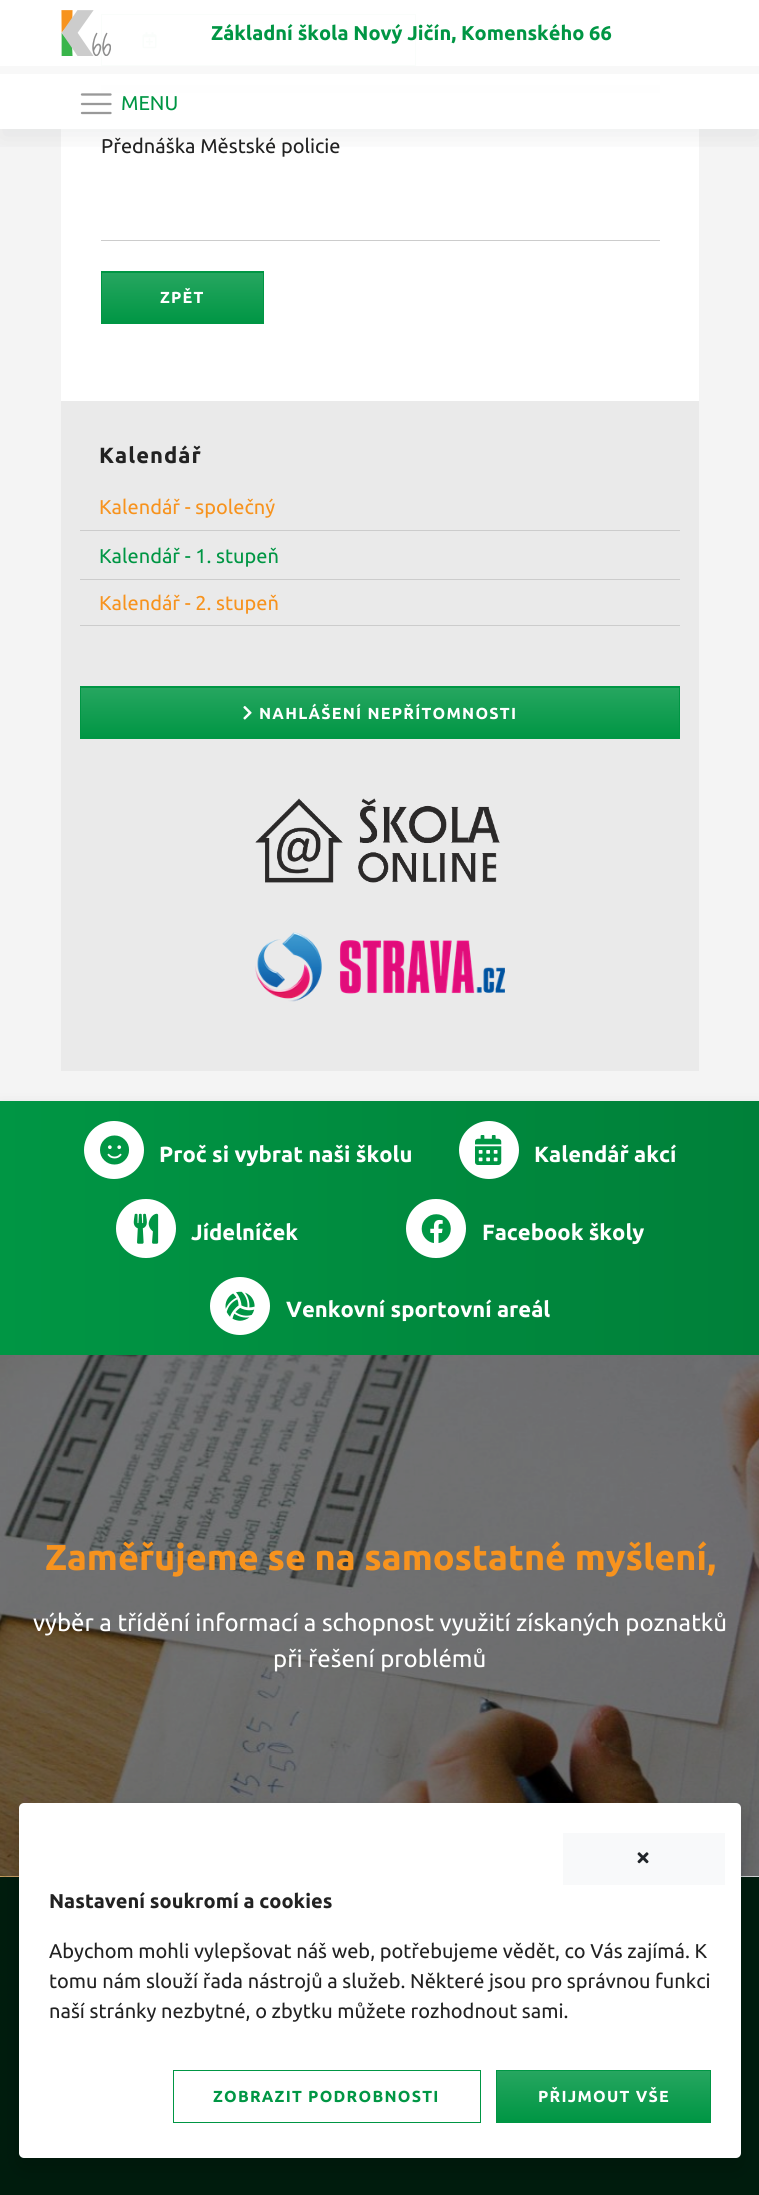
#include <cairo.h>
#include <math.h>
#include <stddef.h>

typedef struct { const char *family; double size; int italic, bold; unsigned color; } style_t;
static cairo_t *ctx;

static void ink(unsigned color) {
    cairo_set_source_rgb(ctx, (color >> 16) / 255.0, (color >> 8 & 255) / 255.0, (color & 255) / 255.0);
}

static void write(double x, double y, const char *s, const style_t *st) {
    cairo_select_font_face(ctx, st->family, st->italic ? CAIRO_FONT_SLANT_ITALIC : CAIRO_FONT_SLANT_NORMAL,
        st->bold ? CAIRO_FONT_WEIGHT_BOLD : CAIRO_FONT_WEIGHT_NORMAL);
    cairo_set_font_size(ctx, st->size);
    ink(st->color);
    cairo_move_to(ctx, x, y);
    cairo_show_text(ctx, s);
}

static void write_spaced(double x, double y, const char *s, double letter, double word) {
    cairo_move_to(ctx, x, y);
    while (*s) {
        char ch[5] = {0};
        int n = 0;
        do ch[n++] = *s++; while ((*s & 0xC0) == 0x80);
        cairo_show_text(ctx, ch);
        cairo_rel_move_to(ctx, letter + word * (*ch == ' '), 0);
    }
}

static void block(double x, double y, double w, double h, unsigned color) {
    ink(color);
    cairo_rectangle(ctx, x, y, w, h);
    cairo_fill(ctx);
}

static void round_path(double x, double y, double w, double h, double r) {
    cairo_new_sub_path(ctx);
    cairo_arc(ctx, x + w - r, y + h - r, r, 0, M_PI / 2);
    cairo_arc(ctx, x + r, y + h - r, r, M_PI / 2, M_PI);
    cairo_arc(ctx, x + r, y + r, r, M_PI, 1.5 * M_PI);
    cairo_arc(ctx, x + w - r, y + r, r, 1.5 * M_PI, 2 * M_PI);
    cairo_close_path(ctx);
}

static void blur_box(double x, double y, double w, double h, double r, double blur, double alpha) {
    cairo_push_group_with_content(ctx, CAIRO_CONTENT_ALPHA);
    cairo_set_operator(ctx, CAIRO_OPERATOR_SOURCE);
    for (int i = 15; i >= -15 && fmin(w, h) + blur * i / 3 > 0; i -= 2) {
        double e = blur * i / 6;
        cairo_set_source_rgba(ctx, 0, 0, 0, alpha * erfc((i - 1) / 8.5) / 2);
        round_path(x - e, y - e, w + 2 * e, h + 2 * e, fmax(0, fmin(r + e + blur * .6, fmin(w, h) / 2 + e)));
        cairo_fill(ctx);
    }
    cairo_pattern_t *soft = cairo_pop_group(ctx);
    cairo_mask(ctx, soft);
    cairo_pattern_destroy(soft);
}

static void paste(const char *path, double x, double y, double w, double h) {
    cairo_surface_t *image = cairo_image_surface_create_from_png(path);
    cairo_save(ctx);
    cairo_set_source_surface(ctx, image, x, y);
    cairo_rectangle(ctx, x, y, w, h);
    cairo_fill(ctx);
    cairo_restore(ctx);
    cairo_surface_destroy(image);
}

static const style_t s1 = {"Ubuntu", 20, 0, 1, 0x009644};
static const style_t s2 = {"Ubuntu", 20, 0, 0, 0x009644};
static const style_t s3 = {"Ubuntu", 20, 0, 0, 0x222222};
static const style_t s4 = {"Ubuntu", 20, 0, 0, 0xf7931e};
static const style_t s5 = {"Ubuntu", 22, 0, 1, 0xffffff};
static const style_t s6 = {"Ubuntu", 36, 0, 1, 0xf7931e};
static const style_t s7 = {"Ubuntu", 24, 0, 0, 0xffffff};
static const style_t s8 = {"Ubuntu", 20, 0, 1, 0x222222};

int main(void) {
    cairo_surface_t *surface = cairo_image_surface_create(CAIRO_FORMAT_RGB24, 759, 2195);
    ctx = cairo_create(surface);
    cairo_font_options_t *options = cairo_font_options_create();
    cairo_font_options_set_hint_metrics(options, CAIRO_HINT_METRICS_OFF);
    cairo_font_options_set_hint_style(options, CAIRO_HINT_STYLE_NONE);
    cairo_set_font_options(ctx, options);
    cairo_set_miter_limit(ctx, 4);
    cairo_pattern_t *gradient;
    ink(0xf4f4f4);
    cairo_paint(ctx);
    block(61, 0, 638, 401, 0xffffff);
    block(101, 85, 559, 8, 0xcccccc);
    cairo_rectangle(ctx, 101.5, 14.5, 314, 51);
    ink(0x009644);
    cairo_set_line_width(ctx, 1);
    cairo_stroke(ctx);
    paste("pic2.png", 142, 32, 15, 17);
    cairo_save(ctx);
    cairo_rectangle(ctx, 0, 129, 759, 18);
    cairo_clip(ctx);
    ink(0x1b1f23);
    blur_box(0, 10, 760, 129, 0, 14, 0.07);
    cairo_restore(ctx);
    cairo_set_source_rgba(ctx, 1, 1, 1, 0.98);
    cairo_rectangle(ctx, 0, 0, 759, 129);
    cairo_fill(ctx);
    block(0, 66, 759, 8, 0xf8f8f8);
    paste("pic1.png", 61, 10, 50, 46);
    write(211, 40, "Základní škola Nový Jičín, Komenského 66", &s1);
    cairo_new_path(ctx);
    cairo_move_to(ctx, 82, 94.5);
    cairo_line_to(ctx, 110.5, 94.5);
    cairo_move_to(ctx, 82, 104);
    cairo_line_to(ctx, 110.5, 104);
    cairo_move_to(ctx, 82, 113);
    cairo_line_to(ctx, 110.5, 113);
    ink(0x999999);
    cairo_set_line_width(ctx, 2.3);
    cairo_set_line_cap(ctx, CAIRO_LINE_CAP_ROUND);
    cairo_stroke(ctx);
    write(121, 110, "MENU", &s2);
    write(101, 153, "Přednáška Městské policie", &s3);
    block(101, 240, 559, 1, 0xcccccc);
    block(102, 272, 161, 1, 0x009644);
    gradient = cairo_pattern_create_linear(183, 273, 183, 323);
    cairo_pattern_add_color_stop_rgba(gradient, 0, 0.149, 0.651, 0.376, 1);
    cairo_pattern_add_color_stop_rgba(gradient, 1, 0, 0.588, 0.267, 1);
    cairo_set_source(ctx, gradient);
    cairo_pattern_destroy(gradient);
    cairo_rectangle(ctx, 102, 273, 161, 50);
    cairo_fill(ctx);
    cairo_rectangle(ctx, 101.5, 271.5, 162, 52);
    ink(0x009644);
    cairo_set_line_width(ctx, 1);
    cairo_set_line_cap(ctx, CAIRO_LINE_CAP_BUTT);
    cairo_stroke(ctx);
    cairo_select_font_face(ctx, "Ubuntu", CAIRO_FONT_SLANT_NORMAL, CAIRO_FONT_WEIGHT_BOLD);
    cairo_set_font_size(ctx, 16);
    ink(0xffffff);
    write_spaced(160, 303, "ZPĚT", 1.25, 0);
    block(61, 401, 638, 670, 0xeaeaea);
    cairo_set_font_size(ctx, 22);
    ink(0x222222);
    write_spaced(99, 463, "Kalendář", 1, 0);
    block(80, 530, 600, 1, 0xcccccc);
    write(99, 514, "Kalendář - společný", &s4);
    block(80, 579, 600, 1, 0xcccccc);
    write(99, 563, "Kalendář - 1. stupeň", &s2);
    block(80, 625, 600, 1, 0xcccccc);
    write(99, 610, "Kalendář - 2. stupeň", &s4);
    block(81, 687, 598, 1, 0x009644);
    gradient = cairo_pattern_create_linear(380, 688, 380, 738);
    cairo_pattern_add_color_stop_rgba(gradient, 0, 0.149, 0.651, 0.376, 1);
    cairo_pattern_add_color_stop_rgba(gradient, 1, 0, 0.588, 0.267, 1);
    cairo_set_source(ctx, gradient);
    cairo_pattern_destroy(gradient);
    cairo_rectangle(ctx, 81, 688, 598, 50);
    cairo_fill(ctx);
    cairo_rectangle(ctx, 80.5, 686.5, 599, 52);
    ink(0x009644);
    cairo_stroke(ctx);
    paste("pic3.png", 243, 706, 9, 14);
    cairo_select_font_face(ctx, "Ubuntu", CAIRO_FONT_SLANT_NORMAL, CAIRO_FONT_WEIGHT_BOLD);
    cairo_set_font_size(ctx, 16);
    ink(0xffffff);
    write_spaced(259, 719, "NAHLÁŠENÍ NEPŘÍTOMNOSTI", 1.25, 0);
    paste("pic4.png", 255, 798, 245, 85);
    paste("pic5.png", 255, 932, 250, 70);
    ink(0x000000);
    blur_box(0, 1111, 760, 254, 0, 10, 0.15);
    gradient = cairo_pattern_create_linear(0, 1228, 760, 1228);
    cairo_pattern_add_color_stop_rgba(gradient, 0, 0, 0.588, 0.267, 1);
    cairo_pattern_add_color_stop_rgba(gradient, 1, 0, 0.502, 0.224, 1);
    cairo_set_source(ctx, gradient);
    cairo_pattern_destroy(gradient);
    cairo_rectangle(ctx, 0, 1101, 759, 254);
    cairo_fill(ctx);
    ink(0xffffff);
    cairo_new_path(ctx);
    cairo_move_to(ctx, 114, 1121);
    cairo_curve_to(ctx, 130.5, 1121, 144, 1134, 144, 1150);
    cairo_curve_to(ctx, 144, 1166, 130.5, 1179, 114, 1179);
    cairo_curve_to(ctx, 97.5, 1179, 84, 1166, 84, 1150);
    cairo_curve_to(ctx, 84, 1134, 97.5, 1121, 114, 1121);
    cairo_close_path(ctx);
    cairo_fill(ctx);
    paste("pic6.png", 100, 1135, 29, 30);
    write(159, 1162, "Proč si vybrat naši školu", &s5);
    cairo_new_path(ctx);
    cairo_move_to(ctx, 489, 1121);
    cairo_curve_to(ctx, 505.5, 1121, 519, 1134, 519, 1150);
    cairo_curve_to(ctx, 519, 1166, 505.5, 1179, 489, 1179);
    cairo_curve_to(ctx, 472.5, 1179, 459, 1166, 459, 1150);
    cairo_curve_to(ctx, 459, 1134, 472.5, 1121, 489, 1121);
    cairo_close_path(ctx);
    cairo_fill(ctx);
    paste("pic7.png", 475, 1135, 27, 30);
    write(534, 1162, "Kalendář akcí", &s5);
    round_path(116, 1199, 60, 59, 29.5);
    cairo_fill(ctx);
    paste("pic8.png", 133, 1213, 26, 31);
    write(191, 1240, "Jídelníček", &s5);
    round_path(406, 1199, 60, 59, 29.5);
    cairo_fill(ctx);
    paste("pic9.png", 421, 1214, 30, 29);
    write(482, 1240, "Facebook školy", &s5);
    cairo_new_path(ctx);
    cairo_move_to(ctx, 240, 1277);
    cairo_curve_to(ctx, 256.5, 1277, 270, 1290, 270, 1306);
    cairo_curve_to(ctx, 270, 1322, 256.5, 1335, 240, 1335);
    cairo_curve_to(ctx, 223.5, 1335, 210, 1322, 210, 1306);
    cairo_curve_to(ctx, 210, 1290, 223.5, 1277, 240, 1277);
    cairo_close_path(ctx);
    cairo_fill(ctx);
    paste("pic10.png", 225, 1291, 30, 30);
    write(286, 1317, "Venkovní sportovní areál", &s5);
    paste("pic11.png", 0, 1355, 759, 522);
    write(45, 1570, "Zaměřujeme se na samostatné myšlení,", &s6);
    write(33, 1631, "výběr a třídění informací a schopnost využití získaných poznatků", &s7);
    write(273, 1667, "při řešení problémů", &s7);
    block(0, 1877, 759, 318, 0x001c0d);
    ink(0x000000);
    blur_box(19, 1813, 722, 355, 5, 10, 0.15);
    ink(0xffffff);
    round_path(19, 1803, 722, 355, 5);
    cairo_fill(ctx);
    block(563, 1833, 162, 52, 0xf8f9fa);
    paste("pic12.png", 637, 1852, 12, 12);
    write(49, 1908, "Nastavení soukromí a cookies", &s8);
    write(49, 1958, "Abychom mohli vylepšovat náš web, potřebujeme vědět, co Vás zajímá. K", &s3);
    write(49, 1988, "tomu nám slouží řada nástrojů a služeb. Některé jsou pro správnou funkci", &s3);
    write(49, 2018, "naší stránky nezbytné, o zbytku můžete rozhodnout sami.", &s3);
    cairo_rectangle(ctx, 173.5, 2070.5, 307, 52);
    ink(0x009644);
    cairo_stroke(ctx);
    cairo_select_font_face(ctx, "Ubuntu", CAIRO_FONT_SLANT_NORMAL, CAIRO_FONT_WEIGHT_BOLD);
    cairo_set_font_size(ctx, 16);
    write_spaced(213, 2102, "ZOBRAZIT PODROBNOSTI", 1.25, 0);
    block(497, 2121, 213, 1, 0x009644);
    gradient = cairo_pattern_create_linear(604, 2071, 604, 2121);
    cairo_pattern_add_color_stop_rgba(gradient, 0, 0.149, 0.651, 0.376, 1);
    cairo_pattern_add_color_stop_rgba(gradient, 1, 0, 0.588, 0.267, 1);
    cairo_set_source(ctx, gradient);
    cairo_pattern_destroy(gradient);
    cairo_rectangle(ctx, 497, 2071, 213, 50);
    cairo_fill(ctx);
    cairo_rectangle(ctx, 496.5, 2070.5, 214, 52);
    ink(0x009644);
    cairo_stroke(ctx);
    ink(0xffffff);
    write_spaced(538, 2102, "PŘIJMOUT VŠE", 1.25, 0);
    cairo_surface_write_to_png(surface, "screenshot.png");
    cairo_font_options_destroy(options);
    cairo_destroy(ctx);
    cairo_surface_destroy(surface);
    return 0;
}
